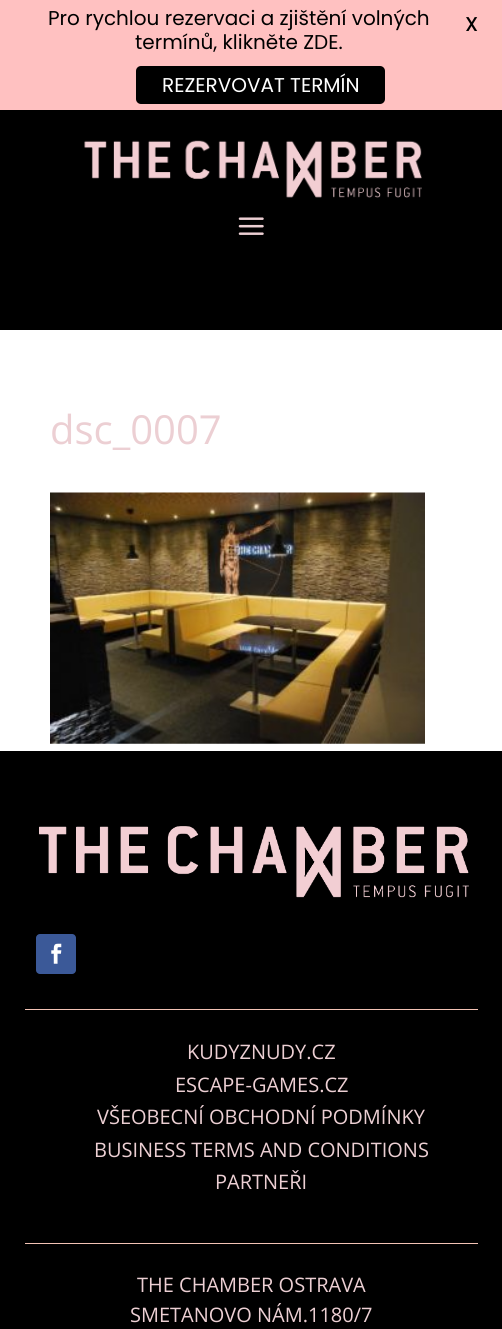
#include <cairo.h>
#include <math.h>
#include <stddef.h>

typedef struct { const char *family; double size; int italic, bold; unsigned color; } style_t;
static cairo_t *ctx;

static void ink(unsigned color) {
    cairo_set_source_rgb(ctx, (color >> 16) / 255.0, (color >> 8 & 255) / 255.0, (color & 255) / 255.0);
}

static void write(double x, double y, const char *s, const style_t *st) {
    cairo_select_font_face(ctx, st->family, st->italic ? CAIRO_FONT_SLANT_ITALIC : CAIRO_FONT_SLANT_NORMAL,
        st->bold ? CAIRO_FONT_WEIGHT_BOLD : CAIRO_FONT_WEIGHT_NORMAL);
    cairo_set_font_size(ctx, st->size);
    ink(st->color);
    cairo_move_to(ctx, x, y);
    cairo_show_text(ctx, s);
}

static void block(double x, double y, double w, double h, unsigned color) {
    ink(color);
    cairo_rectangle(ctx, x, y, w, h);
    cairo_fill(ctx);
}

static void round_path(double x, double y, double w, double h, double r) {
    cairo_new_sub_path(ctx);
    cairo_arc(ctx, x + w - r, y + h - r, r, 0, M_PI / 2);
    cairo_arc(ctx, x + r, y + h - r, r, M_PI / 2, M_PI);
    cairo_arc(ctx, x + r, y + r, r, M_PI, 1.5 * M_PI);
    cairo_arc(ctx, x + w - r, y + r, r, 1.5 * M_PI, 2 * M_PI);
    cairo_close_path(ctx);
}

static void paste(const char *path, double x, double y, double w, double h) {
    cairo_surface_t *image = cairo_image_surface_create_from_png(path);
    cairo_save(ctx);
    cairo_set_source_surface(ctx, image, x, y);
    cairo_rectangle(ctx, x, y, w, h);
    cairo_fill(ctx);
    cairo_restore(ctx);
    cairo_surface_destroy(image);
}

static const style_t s1 = {"Poppins", 20, 0, 0, 0x000000};
static const style_t s2 = {"Poppins Medium", 20, 0, 0, 0x000000};
static const style_t s3 = {"Poppins", 20, 0, 0, 0xffffff};
static const style_t s4 = {"Open Sans", 40, 0, 0, 0xeccfd3};
static const style_t s5 = {"Open Sans", 20, 0, 0, 0xeccfd3};

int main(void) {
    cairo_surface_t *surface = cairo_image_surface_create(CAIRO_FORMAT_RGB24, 502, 1329);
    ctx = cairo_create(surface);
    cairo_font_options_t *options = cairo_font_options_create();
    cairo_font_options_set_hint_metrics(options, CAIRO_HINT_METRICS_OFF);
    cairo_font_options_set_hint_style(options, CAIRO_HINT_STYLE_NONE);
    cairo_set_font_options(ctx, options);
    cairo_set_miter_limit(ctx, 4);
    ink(0xffffff);
    cairo_paint(ctx);
    block(0, 0, 502, 110, 0xffc1c1);
    write(48, 25, "Pro rychlou rezervaci a zjištění volných", &s1);
    write(135, 49, "termínů, klikněte ZDE.", &s1);
    write(465, 31, "X", &s2);
    round_path(136, 66, 249, 38, 5);
    cairo_fill(ctx);
    write(162, 92, "REZERVOVAT TERMÍN", &s3);
    block(0, 110, 502, 220, 0x000000);
    paste("pic1.png", 84, 140, 338, 58);
    paste("pic2.png", 238, 217, 26, 18);
    write(50, 444, "dsc_0007", &s4);
    paste("pic3.png", 50, 492, 375, 252);
    block(0, 751, 502, 578, 0x000000);
    paste("pic4.png", 39, 826, 430, 72);
    ink(0x3b5998);
    round_path(36, 934, 40, 40, 4);
    cairo_fill(ctx);
    paste("pic5.png", 51, 943, 11, 21);
    block(25, 1009, 453, 1, 0xf3c3b5);
    write(187, 1059, "KUDYZNUDY.CZ", &s5);
    write(175, 1092, "ESCAPE-GAMES.CZ", &s5);
    write(97, 1124, "VŠEOBECNÍ OBCHODNÍ PODMÍNKY", &s5);
    write(94, 1157, "BUSINESS TERMS AND CONDITIONS", &s5);
    write(215, 1189, "PARTNEŘI", &s5);
    block(25, 1243, 453, 1, 0xf3c3b5);
    write(137, 1292, "THE CHAMBER OSTRAVA", &s5);
    write(130, 1322, "SMETANOVO NÁM.1180/7", &s5);
    cairo_surface_write_to_png(surface, "screenshot.png");
    cairo_font_options_destroy(options);
    cairo_destroy(ctx);
    cairo_surface_destroy(surface);
    return 0;
}
